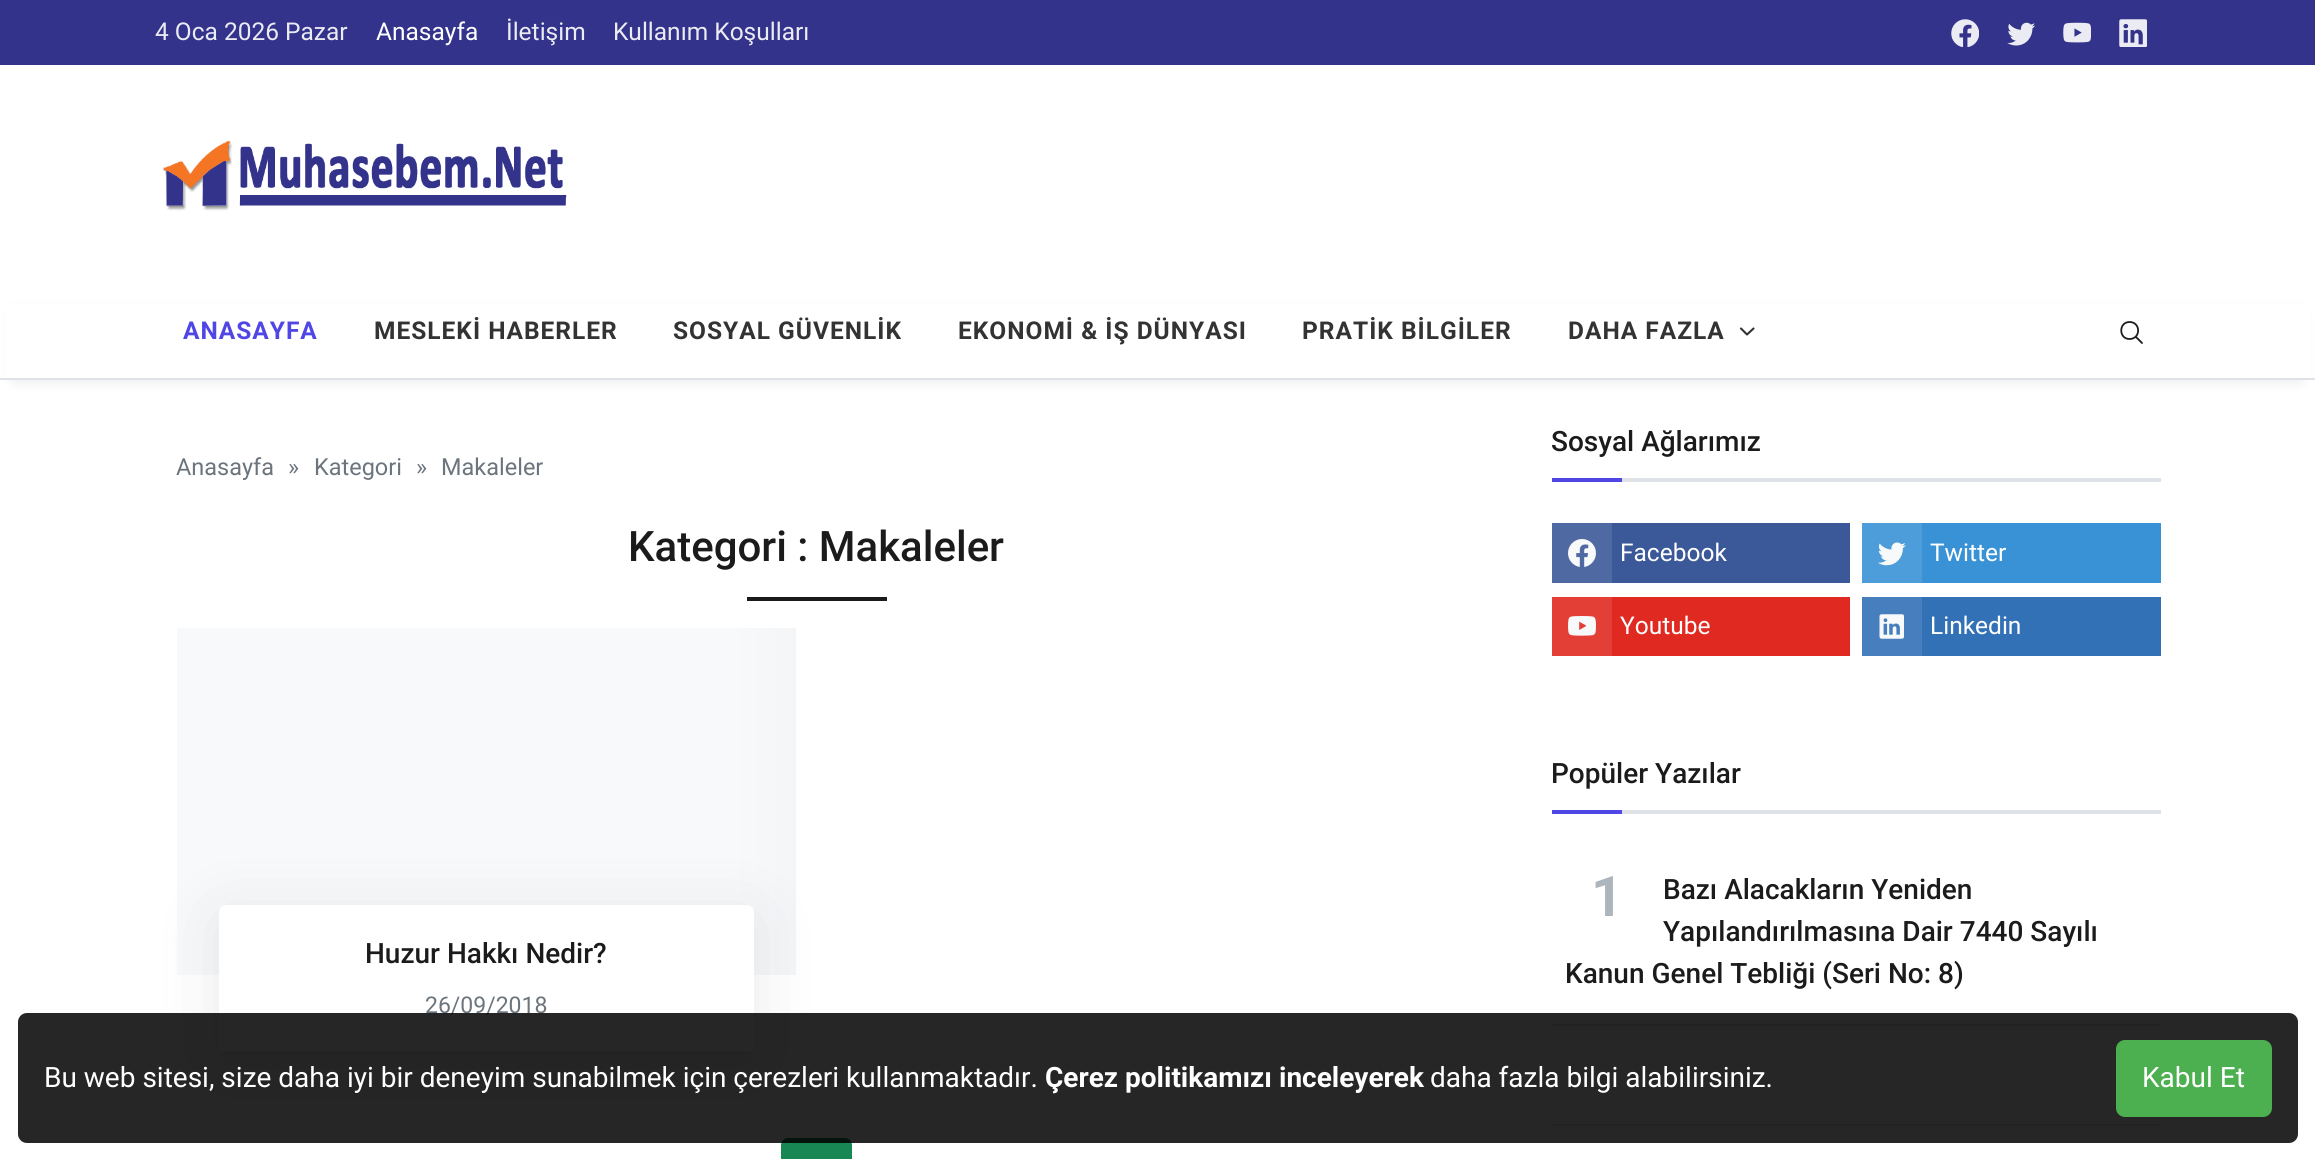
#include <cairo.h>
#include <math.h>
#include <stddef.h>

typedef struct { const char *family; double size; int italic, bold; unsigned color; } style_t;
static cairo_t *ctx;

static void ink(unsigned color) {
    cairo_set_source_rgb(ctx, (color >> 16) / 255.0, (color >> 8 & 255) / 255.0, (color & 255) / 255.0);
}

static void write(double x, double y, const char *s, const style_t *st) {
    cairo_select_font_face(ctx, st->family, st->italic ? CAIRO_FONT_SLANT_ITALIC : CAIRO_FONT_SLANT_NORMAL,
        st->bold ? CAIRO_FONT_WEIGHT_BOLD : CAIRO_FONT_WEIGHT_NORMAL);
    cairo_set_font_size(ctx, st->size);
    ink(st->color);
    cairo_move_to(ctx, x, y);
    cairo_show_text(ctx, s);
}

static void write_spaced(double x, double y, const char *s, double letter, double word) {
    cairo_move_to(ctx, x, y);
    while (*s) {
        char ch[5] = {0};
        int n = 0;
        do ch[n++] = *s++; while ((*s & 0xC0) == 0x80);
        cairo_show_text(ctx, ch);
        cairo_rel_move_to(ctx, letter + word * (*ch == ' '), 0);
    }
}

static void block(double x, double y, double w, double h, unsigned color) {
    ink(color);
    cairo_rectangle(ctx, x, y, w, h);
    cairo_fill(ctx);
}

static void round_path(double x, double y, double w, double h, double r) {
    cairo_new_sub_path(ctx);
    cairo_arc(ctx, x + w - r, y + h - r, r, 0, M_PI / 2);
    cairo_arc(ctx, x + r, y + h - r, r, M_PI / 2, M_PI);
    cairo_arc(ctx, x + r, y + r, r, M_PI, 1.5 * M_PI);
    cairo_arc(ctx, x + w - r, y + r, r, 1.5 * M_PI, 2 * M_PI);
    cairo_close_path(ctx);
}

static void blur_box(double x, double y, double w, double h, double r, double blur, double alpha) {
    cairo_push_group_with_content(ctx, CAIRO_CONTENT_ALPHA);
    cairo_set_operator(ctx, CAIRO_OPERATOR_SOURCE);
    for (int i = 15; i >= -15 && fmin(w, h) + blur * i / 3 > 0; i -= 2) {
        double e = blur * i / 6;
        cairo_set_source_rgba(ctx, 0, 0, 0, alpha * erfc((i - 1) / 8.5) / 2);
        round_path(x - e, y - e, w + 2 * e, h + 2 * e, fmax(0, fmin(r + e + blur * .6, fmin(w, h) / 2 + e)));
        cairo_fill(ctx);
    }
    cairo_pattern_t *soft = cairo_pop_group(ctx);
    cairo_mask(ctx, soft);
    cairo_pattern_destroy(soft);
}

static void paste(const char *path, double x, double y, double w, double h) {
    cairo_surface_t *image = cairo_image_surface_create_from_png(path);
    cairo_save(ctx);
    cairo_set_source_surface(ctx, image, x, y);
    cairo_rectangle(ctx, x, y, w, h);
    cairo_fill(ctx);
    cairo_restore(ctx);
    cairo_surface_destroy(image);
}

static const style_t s1 = {"Roboto", 24.5, 0, 0, 0xebebf3};
static const style_t s2 = {"Roboto", 24.5, 0, 0, 0xffffff};
static const style_t s3 = {"Roboto", 23.5, 0, 0, 0x6c757d};
static const style_t s4 = {"Roboto Medium", 42, 0, 0, 0x1b1b1b};
static const style_t s5 = {"Roboto Medium", 28, 0, 0, 0x1b1b1b};
static const style_t s6 = {"Roboto", 23, 0, 0, 0x6c757d};
static const style_t s7 = {"Roboto", 56, 0, 1, 0xadb5bd};
static const style_t s8 = {"Roboto", 28, 0, 0, 0xffffff};
static const style_t s9 = {"Roboto", 28, 0, 1, 0xffffff};

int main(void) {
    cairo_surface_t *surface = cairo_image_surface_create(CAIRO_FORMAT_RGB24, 2315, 1159);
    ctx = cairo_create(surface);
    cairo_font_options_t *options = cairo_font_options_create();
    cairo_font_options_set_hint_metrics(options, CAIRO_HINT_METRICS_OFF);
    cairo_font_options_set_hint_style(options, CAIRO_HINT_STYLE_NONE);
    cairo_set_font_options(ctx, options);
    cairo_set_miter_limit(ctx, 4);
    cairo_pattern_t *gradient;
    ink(0xffffff);
    cairo_paint(ctx);
    block(0, 0, 2315, 65, 0x33338b);
    write(155, 40, "4 Oca 2026 Pazar", &s1);
    write(376, 40, "Anasayfa", &s2);
    write(506, 40, "İletişim", &s1);
    write(613, 40, "Kullanım Koşulları", &s1);
    paste("pic1.png", 1951, 19, 28, 28);
    paste("pic2.png", 2007, 22, 28, 24);
    paste("pic3.png", 2063, 22, 28, 21);
    paste("pic4.png", 2119, 19, 28, 28);
    paste("pic5.png", 163, 141, 404, 70);
    ink(0x000000);
    blur_box(14, 313, 2287, 67, 0, 7, 0.1);
    block(5, 304, 2305, 74, 0xffffff);
    block(0, 378, 2315, 2, 0xdee2e6);
    cairo_select_font_face(ctx, "Roboto", CAIRO_FONT_SLANT_NORMAL, CAIRO_FONT_WEIGHT_BOLD);
    ink(0x4f46e5);
    write_spaced(183, 339, "ANASAYFA", 1, 0);
    ink(0x333333);
    write_spaced(374, 339, "MESLEKİ HABERLER", 1, 0);
    write_spaced(673, 339, "SOSYAL GÜVENLİK", 1, 0);
    write_spaced(958, 339, "EKONOMİ & İŞ DÜNYASI", 1, 0);
    write_spaced(1302, 339, "PRATİK BİLGİLER", 1, 0);
    write_spaced(1568, 339, "DAHA FAZLA", 1, 0);
    cairo_new_path(ctx);
    cairo_move_to(ctx, 1741, 328.5);
    cairo_line_to(ctx, 1747, 334.5);
    cairo_line_to(ctx, 1753.5, 328.5);
    cairo_set_line_width(ctx, 2.1);
    cairo_set_line_cap(ctx, CAIRO_LINE_CAP_ROUND);
    cairo_set_line_join(ctx, CAIRO_LINE_JOIN_ROUND);
    cairo_stroke(ctx);
    cairo_new_path(ctx);
    cairo_move_to(ctx, 2129.5, 322);
    cairo_curve_to(ctx, 2118.5, 322, 2118.5, 339, 2129.5, 339);
    cairo_curve_to(ctx, 2141, 339, 2141, 322, 2129.5, 322);
    cairo_close_path(ctx);
    ink(0x1b1b1b);
    cairo_set_line_width(ctx, 1.8);
    cairo_set_line_cap(ctx, CAIRO_LINE_CAP_BUTT);
    cairo_set_line_join(ctx, CAIRO_LINE_JOIN_MITER);
    cairo_stroke(ctx);
    cairo_new_path(ctx);
    cairo_move_to(ctx, 2136, 337);
    cairo_line_to(ctx, 2142, 343);
    cairo_set_line_cap(ctx, CAIRO_LINE_CAP_ROUND);
    cairo_stroke(ctx);
    write(176, 475, "Anasayfa", &s3);
    write(288, 475, "»", &s3);
    write(314, 475, "Kategori", &s3);
    write(416, 475, "»", &s3);
    write(441, 475, "Makaleler", &s3);
    write(628, 561, "Kategori : Makaleler", &s4);
    block(747, 597, 140, 4, 0x1b1b1b);
    gradient = cairo_pattern_create_linear(1726, 802, -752, 801);
    cairo_pattern_add_color_stop_rgba(gradient, 0, 0.973, 0.976, 0.98, 1);
    cairo_pattern_add_color_stop_rgba(gradient, 0.15, 0.808, 0.831, 0.855, 1);
    cairo_pattern_add_color_stop_rgba(gradient, 0.4, 0.973, 0.976, 0.98, 1);
    cairo_pattern_add_color_stop_rgba(gradient, 1, 0.973, 0.976, 0.98, 1);
    cairo_set_source(ctx, gradient);
    cairo_pattern_destroy(gradient);
    cairo_rectangle(ctx, 177, 628, 619, 347);
    cairo_fill(ctx);
    ink(0x1b1e24);
    blur_box(219, 915, 535, 149, 7, 31, 0.1);
    ink(0xffffff);
    round_path(219, 905, 535, 149, 7);
    cairo_fill(ctx);
    block(222, 1052, 529, 2, 0xdee2e6);
    write(365, 963, "Huzur Hakkı Nedir?", &s5);
    write(425, 1013, "26/09/2018", &s6);
    ink(0x198754);
    round_path(782, 1139, 69, 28, 6);
    cairo_fill_preserve(ctx);
    cairo_set_line_width(ctx, 2);
    cairo_set_line_cap(ctx, CAIRO_LINE_CAP_BUTT);
    cairo_stroke(ctx);
    block(1622, 478, 539, 4, 0xdee2e6);
    write(1551, 451, "Sosyal Ağlarımız", &s5);
    block(1552, 478, 70, 4, 0x4f46e5);
    block(1612, 523, 238, 60, 0x3b5898);
    block(1552, 523, 60, 60, 0x4f69a2);
    paste("pic6.png", 1568, 539, 28, 28);
    write(1620, 561, "Facebook", &s2);
    block(1922, 523, 239, 60, 0x3992d6);
    block(1862, 523, 60, 60, 0x4d9dda);
    paste("pic7.png", 1878, 542, 28, 24);
    write(1930, 561, "Twitter", &s2);
    block(1612, 597, 238, 59, 0xe02a21);
    block(1552, 597, 60, 59, 0xe33f37);
    paste("pic8.png", 1568, 616, 28, 20);
    write(1620, 634, "Youtube", &s2);
    block(1922, 597, 239, 59, 0x3371b7);
    block(1862, 597, 60, 59, 0x477fbe);
    paste("pic9.png", 1879, 614, 25, 25);
    write(1930, 634, "Linkedin", &s2);
    block(1622, 810, 539, 4, 0xdee2e6);
    write(1551, 783, "Popüler Yazılar", &s5);
    block(1552, 810, 70, 4, 0x4f46e5);
    block(1552, 1024, 609, 2, 0xdee2e6);
    write(1591, 916, "1", &s7);
    write(1663, 899, "Bazı Alacakların Yeniden", &s5);
    write(1663, 941, "Yapılandırılmasına Dair 7440 Sayılı", &s5);
    write(1565, 983, "Kanun Genel Tebliği (Seri No: 8)", &s5);
    block(1552, 1124, 609, 2, 0xdee2e6);
    cairo_set_source_rgba(ctx, 0, 0, 0, 0.85);
    round_path(18, 1013, 2280, 130, 9);
    cairo_fill(ctx);
    write(44, 1087, "Bu web sitesi, size daha iyi bir deneyim sunabilmek için çerezleri kullanmaktadır.", &s8);
    write(1045, 1087, "Çerez politikamızı inceleyerek", &s9);
    write(1430, 1087, "daha fazla bilgi alabilirsiniz.", &s8);
    ink(0x4caf50);
    round_path(2116, 1040, 156, 77, 9);
    cairo_fill(ctx);
    write(2142, 1087, "Kabul Et", &s8);
    cairo_surface_write_to_png(surface, "screenshot.png");
    cairo_font_options_destroy(options);
    cairo_destroy(ctx);
    cairo_surface_destroy(surface);
    return 0;
}
